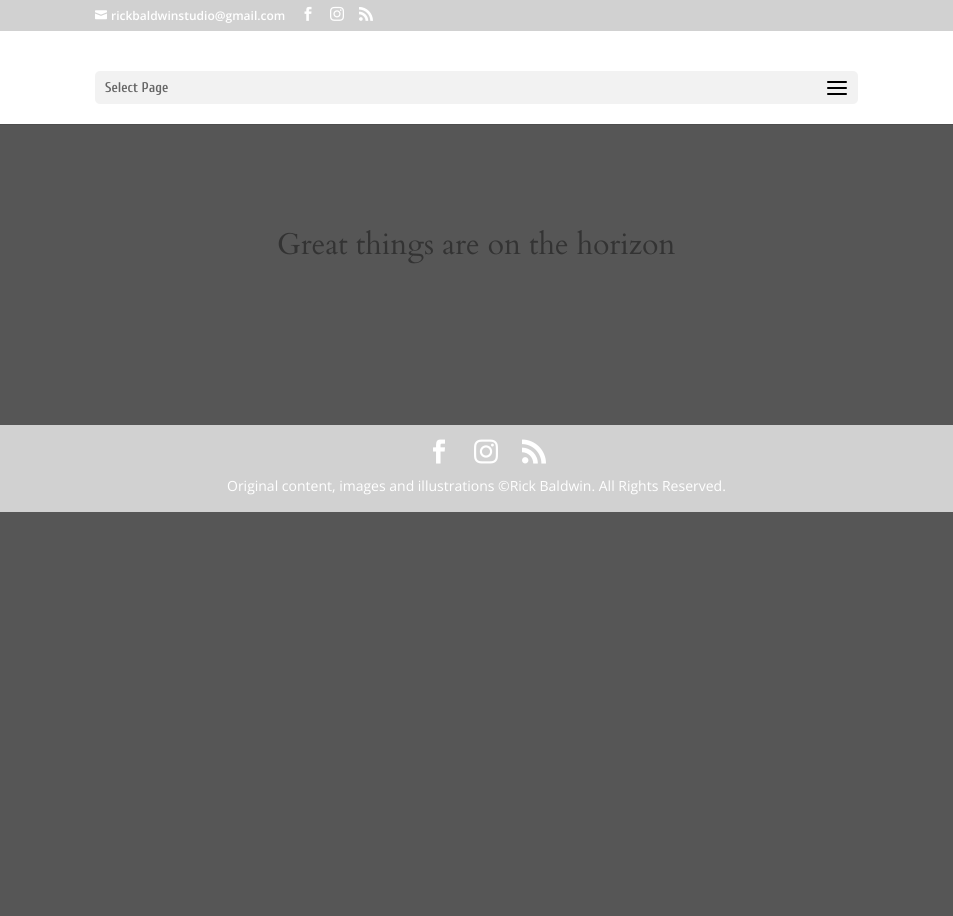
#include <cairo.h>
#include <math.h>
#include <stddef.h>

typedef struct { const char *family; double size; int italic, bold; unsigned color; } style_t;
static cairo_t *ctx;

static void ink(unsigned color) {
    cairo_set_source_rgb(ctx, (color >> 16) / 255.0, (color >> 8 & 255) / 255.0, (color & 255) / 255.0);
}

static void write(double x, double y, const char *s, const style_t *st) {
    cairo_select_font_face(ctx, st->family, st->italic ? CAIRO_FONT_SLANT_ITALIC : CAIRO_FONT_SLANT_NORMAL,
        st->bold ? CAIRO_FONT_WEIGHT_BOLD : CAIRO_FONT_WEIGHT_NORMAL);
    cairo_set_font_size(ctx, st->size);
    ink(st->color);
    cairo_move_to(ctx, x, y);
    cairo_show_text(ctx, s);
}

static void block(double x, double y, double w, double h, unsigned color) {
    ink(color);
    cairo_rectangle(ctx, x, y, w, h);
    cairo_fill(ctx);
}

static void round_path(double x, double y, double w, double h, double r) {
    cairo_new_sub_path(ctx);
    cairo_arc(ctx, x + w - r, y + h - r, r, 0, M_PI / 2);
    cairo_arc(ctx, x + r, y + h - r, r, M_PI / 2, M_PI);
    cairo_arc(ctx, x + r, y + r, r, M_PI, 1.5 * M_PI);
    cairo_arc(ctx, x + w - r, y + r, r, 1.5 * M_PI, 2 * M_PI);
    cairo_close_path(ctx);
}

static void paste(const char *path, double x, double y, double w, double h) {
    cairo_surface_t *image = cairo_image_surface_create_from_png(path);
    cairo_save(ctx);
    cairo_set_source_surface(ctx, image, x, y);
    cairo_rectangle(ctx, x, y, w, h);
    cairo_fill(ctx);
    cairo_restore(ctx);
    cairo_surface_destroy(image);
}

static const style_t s1 = {"Open Sans SemiBold", 12, 0, 0, 0xffffff};
static const style_t s2 = {"Cuprum SemiBold", 14, 0, 0, 0x666666};
static const style_t s3 = {"Open Sans", 14, 0, 0, 0xffffff};

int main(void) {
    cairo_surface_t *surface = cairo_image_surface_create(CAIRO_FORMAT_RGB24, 953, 916);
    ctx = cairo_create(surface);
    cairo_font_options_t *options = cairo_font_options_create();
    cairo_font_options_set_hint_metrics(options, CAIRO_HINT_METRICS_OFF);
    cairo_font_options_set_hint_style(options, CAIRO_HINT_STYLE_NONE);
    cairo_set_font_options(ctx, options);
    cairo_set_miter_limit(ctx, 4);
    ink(0x565656);
    cairo_paint(ctx);
    block(0, 0, 953, 31, 0xd1d1d1);
    paste("pic1.png", 95, 10, 12, 10);
    write(111, 20, "rickbaldwinstudio@gmail.com", &s1);
    paste("pic2.png", 304, 6, 8, 15);
    paste("pic3.png", 330, 6, 14, 15);
    paste("pic4.png", 359, 7, 14, 14);
    block(0, 124, 953, 1, 0x4d4d4d);
    block(0, 31, 953, 93, 0xffffff);
    ink(0xf2f2f2);
    round_path(95, 71, 763, 33, 5);
    cairo_fill(ctx);
    write(105, 92, "Select Page", &s2);
    paste("pic5.png", 827, 81, 20, 14);
    paste("pic6.png", 278, 230, 397, 34);
    block(0, 425, 953, 87, 0xd1d1d1);
    paste("pic7.png", 433, 439, 12, 25);
    paste("pic8.png", 474, 439, 24, 25);
    paste("pic9.png", 522, 439, 24, 25);
    write(227, 491, "Original content, images and illustrations ©Rick Baldwin. All Rights Reserved.", &s3);
    cairo_surface_write_to_png(surface, "screenshot.png");
    cairo_font_options_destroy(options);
    cairo_destroy(ctx);
    cairo_surface_destroy(surface);
    return 0;
}
